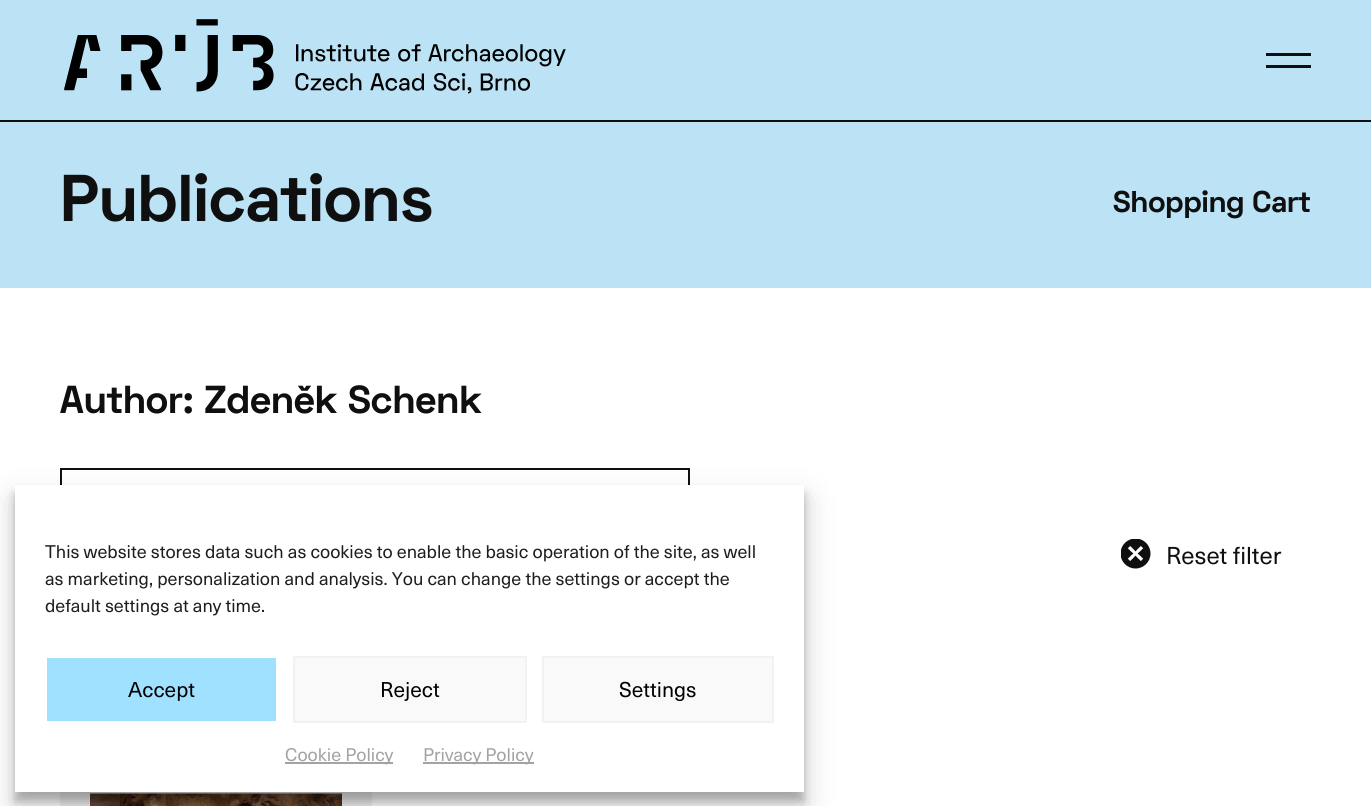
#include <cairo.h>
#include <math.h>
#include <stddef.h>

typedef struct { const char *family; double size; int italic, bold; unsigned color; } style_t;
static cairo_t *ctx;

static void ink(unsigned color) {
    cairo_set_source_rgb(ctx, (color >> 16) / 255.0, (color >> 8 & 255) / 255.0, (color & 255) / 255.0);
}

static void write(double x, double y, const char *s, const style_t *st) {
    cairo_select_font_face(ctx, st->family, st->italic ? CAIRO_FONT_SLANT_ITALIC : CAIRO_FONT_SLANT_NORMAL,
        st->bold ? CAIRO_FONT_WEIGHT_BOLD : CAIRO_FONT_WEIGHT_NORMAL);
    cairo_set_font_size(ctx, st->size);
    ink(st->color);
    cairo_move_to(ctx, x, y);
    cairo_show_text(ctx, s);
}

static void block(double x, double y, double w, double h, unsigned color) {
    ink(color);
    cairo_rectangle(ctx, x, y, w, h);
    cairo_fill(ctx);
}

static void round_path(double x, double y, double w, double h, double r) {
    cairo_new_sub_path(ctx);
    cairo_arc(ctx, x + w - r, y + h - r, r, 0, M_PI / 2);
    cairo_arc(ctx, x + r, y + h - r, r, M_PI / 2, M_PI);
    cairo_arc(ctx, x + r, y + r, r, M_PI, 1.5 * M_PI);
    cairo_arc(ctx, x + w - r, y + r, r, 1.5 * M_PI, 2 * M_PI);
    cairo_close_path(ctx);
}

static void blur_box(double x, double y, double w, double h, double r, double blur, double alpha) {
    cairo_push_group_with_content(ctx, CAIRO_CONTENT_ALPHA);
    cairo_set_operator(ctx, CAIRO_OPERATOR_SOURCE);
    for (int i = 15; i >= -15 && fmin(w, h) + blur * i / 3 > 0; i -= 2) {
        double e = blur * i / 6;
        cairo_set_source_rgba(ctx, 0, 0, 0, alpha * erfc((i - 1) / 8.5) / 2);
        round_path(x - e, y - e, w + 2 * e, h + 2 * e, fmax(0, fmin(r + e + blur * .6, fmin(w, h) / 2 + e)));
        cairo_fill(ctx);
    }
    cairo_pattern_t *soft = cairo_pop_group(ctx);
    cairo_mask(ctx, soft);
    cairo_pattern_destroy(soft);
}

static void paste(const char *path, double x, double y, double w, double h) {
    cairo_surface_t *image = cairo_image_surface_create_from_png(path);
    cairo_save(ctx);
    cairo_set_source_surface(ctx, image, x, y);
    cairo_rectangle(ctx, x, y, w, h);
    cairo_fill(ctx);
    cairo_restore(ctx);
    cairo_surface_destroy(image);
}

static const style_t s1 = {"Space Grotesk", 66, 0, 1, 0x0f0f0f};
static const style_t s2 = {"Space Grotesk", 30, 0, 1, 0x0f0f0f};
static const style_t s3 = {"Space Grotesk", 39, 0, 1, 0x0f0f0f};
static const style_t s4 = {"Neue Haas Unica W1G", 24, 0, 0, 0x0f0f0f};
static const style_t s5 = {"Neue Haas Unica W1G", 18, 0, 0, 0x1e1e1e};
static const style_t s6 = {"Neue Haas Unica W1G", 21, 0, 0, 0x000000};
static const style_t s7 = {"Neue Haas Unica W1G", 18, 0, 0, 0xa3a3a3};

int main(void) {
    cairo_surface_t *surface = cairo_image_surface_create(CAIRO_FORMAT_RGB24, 1371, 806);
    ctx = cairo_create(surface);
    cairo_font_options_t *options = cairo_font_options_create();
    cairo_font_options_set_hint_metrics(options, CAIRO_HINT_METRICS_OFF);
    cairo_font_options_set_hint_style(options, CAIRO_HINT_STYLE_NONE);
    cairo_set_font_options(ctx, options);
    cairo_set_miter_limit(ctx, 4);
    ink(0xffffff);
    cairo_paint(ctx);
    block(0, 0, 1371, 120, 0xbbe3f5);
    paste("pic1.png", 64, 19, 502, 75);
    block(1266, 53, 45, 3, 0x0f0f0f);
    block(1266, 65, 45, 3, 0x0f0f0f);
    block(0, 120, 1371, 2, 0x0f0f0f);
    block(0, 122, 1371, 166, 0xbbe3f5);
    write(60, 221, "Publications", &s1);
    write(1113, 212, "Shopping Cart", &s2);
    write(60, 413, "Author: Zdeněk Schenk", &s3);
    cairo_rectangle(ctx, 61, 469, 628, 63);
    cairo_stroke(ctx);
    paste("pic2.png", 1121, 539, 30, 30);
    write(1166, 564, "Reset filter", &s4);
    block(60, 792, 312, 14, 0xf0f0f0);
    paste("pic3.png", 90, 793, 252, 13);
    ink(0x000000);
    blur_box(15, 494, 789, 307, 0, 4.5, 0.23);
    blur_box(15, 500, 789, 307, 0, 15, 0.19);
    block(15, 485, 789, 307, 0xffffff);
    write(45, 558, "This website stores data such as cookies to enable the basic operation of the site, as well", &s5);
    write(45, 585, "as marketing, personalization and analysis. You can change the settings or accept the", &s5);
    write(45, 612, "default settings at any time.", &s5);
    block(47, 658, 229, 63, 0x9fe1ff);
    write(128, 697, "Accept", &s6);
    ink(0xf9f9f9);
    cairo_rectangle(ctx, 294, 657, 232, 65);
    cairo_fill_preserve(ctx);
    ink(0xf2f2f2);
    cairo_stroke(ctx);
    write(380, 697, "Reject", &s6);
    ink(0xf9f9f9);
    cairo_rectangle(ctx, 543, 657, 230, 65);
    cairo_fill_preserve(ctx);
    ink(0xf2f2f2);
    cairo_stroke(ctx);
    write(619, 697, "Settings", &s6);
    block(285, 762, 108, 2, 0xa3a3a3);
    write(285, 761, "Cookie Policy", &s7);
    block(423, 762, 111, 2, 0xa3a3a3);
    write(423, 761, "Privacy Policy", &s7);
    cairo_surface_write_to_png(surface, "screenshot.png");
    cairo_font_options_destroy(options);
    cairo_destroy(ctx);
    cairo_surface_destroy(surface);
    return 0;
}
